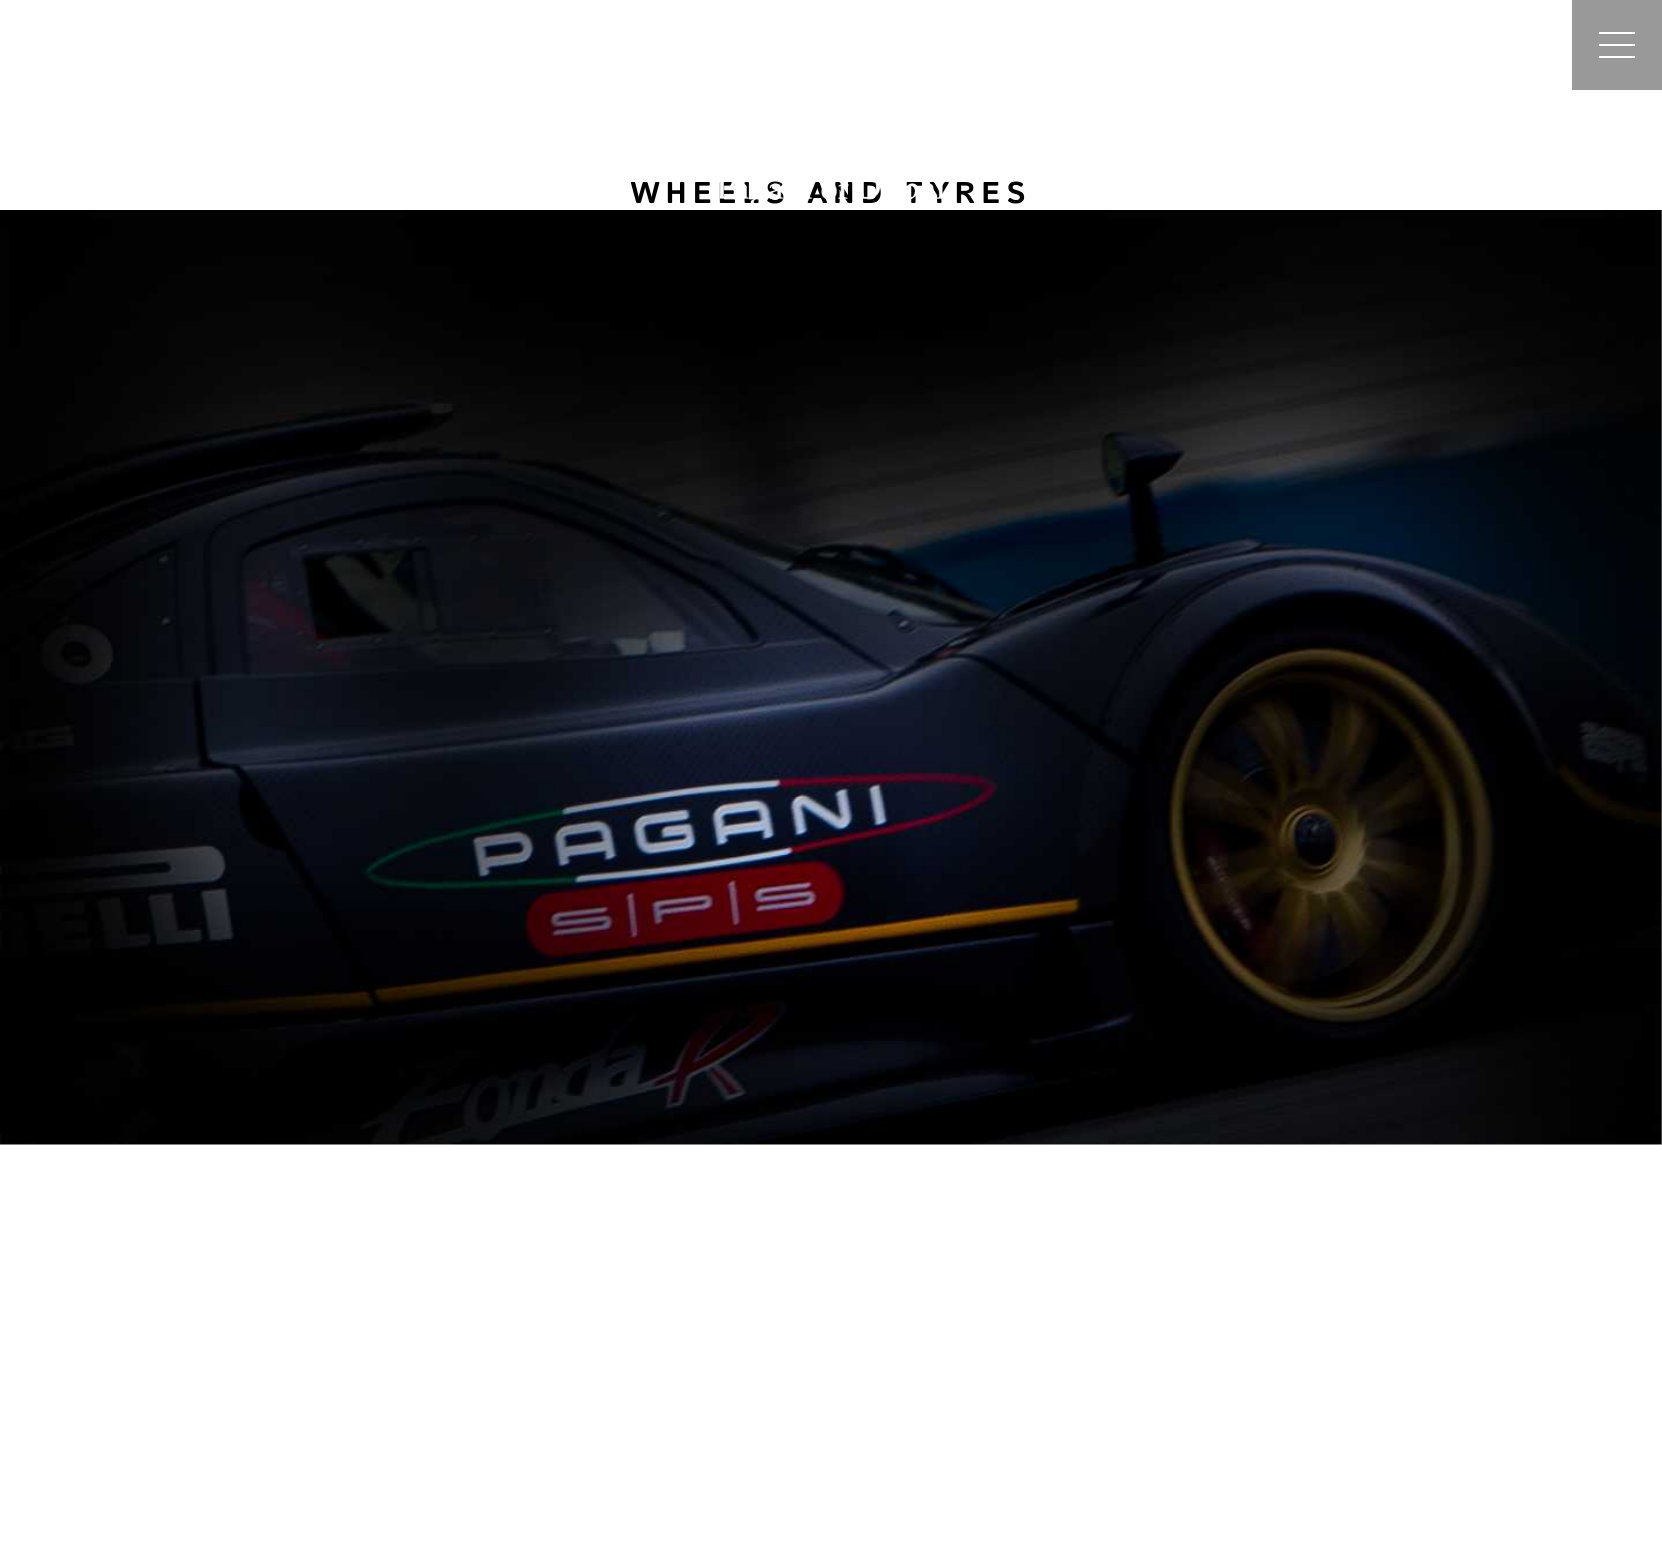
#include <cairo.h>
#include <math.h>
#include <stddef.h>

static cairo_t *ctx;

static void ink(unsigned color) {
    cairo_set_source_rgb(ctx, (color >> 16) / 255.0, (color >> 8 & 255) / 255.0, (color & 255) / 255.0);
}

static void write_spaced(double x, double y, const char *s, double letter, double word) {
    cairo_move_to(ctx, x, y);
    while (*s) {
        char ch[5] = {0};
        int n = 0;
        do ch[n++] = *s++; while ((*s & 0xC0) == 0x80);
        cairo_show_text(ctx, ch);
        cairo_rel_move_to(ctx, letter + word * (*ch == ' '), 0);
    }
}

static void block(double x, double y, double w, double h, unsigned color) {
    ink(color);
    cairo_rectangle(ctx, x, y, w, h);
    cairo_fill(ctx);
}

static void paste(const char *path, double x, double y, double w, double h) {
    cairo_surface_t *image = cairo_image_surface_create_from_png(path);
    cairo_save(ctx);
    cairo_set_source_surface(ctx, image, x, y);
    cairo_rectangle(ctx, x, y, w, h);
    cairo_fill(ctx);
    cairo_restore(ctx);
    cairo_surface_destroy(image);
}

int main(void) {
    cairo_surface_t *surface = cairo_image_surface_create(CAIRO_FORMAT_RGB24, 1662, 1568);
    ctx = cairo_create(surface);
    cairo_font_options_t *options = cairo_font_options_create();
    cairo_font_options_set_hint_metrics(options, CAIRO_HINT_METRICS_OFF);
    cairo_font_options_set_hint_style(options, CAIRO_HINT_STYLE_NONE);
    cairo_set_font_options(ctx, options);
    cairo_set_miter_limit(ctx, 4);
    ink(0xffffff);
    cairo_paint(ctx);
    block(1572, 0, 90, 90, 0x999999);
    block(1599, 32, 36, 2, 0xffffff);
    block(1599, 44, 36, 2, 0xffffff);
    block(1599, 56, 36, 2, 0xffffff);
    cairo_select_font_face(ctx, "Istok Web", CAIRO_FONT_SLANT_NORMAL, CAIRO_FONT_WEIGHT_BOLD);
    cairo_set_font_size(ctx, 30);
    ink(0x000000);
    write_spaced(630, 203, "WHEELS AND TYRES", 6, 0);
    paste("pic1.png", 720, 182, 223, 21);
    paste("pic2.png", 0, 210, 1662, 935);
    cairo_surface_write_to_png(surface, "screenshot.png");
    cairo_font_options_destroy(options);
    cairo_destroy(ctx);
    cairo_surface_destroy(surface);
    return 0;
}
